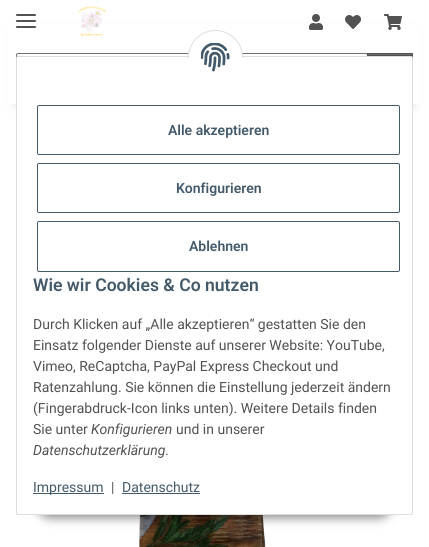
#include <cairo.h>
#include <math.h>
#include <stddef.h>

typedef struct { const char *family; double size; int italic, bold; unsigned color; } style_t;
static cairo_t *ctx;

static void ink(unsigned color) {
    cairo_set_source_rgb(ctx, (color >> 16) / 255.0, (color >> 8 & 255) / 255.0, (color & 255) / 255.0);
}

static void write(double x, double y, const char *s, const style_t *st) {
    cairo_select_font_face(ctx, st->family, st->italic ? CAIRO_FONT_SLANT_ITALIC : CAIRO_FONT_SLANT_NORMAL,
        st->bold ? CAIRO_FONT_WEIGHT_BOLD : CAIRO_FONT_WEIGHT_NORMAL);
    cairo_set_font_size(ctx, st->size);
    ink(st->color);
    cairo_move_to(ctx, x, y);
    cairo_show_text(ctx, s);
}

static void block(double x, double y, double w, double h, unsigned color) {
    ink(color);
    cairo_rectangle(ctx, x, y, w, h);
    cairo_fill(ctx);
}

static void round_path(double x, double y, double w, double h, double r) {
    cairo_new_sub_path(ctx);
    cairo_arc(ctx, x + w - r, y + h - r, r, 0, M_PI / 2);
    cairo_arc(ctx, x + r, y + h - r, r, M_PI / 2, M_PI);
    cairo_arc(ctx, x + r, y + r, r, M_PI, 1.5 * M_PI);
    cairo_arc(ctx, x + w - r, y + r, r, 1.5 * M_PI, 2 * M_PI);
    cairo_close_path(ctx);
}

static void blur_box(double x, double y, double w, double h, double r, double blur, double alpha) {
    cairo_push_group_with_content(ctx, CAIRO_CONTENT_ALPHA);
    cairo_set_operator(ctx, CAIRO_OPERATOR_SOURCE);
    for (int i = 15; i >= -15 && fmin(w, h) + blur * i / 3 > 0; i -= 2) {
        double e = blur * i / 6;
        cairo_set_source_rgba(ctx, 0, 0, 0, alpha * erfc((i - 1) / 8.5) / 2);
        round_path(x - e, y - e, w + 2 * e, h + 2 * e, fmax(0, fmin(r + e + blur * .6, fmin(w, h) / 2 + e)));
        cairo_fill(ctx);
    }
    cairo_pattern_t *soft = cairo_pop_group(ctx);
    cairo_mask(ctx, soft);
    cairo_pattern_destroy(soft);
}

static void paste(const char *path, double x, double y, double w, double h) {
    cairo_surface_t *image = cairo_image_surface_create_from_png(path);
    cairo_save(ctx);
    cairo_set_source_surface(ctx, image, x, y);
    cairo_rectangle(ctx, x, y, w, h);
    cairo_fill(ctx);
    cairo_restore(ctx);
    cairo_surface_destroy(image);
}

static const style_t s1 = {"Roboto SemiBold", 14, 0, 0, 0x435a6b};
static const style_t s2 = {"Roboto SemiBold", 17.6, 0, 0, 0x435a6b};
static const style_t s3 = {"Roboto", 14, 0, 0, 0x525252};
static const style_t s4 = {"Roboto", 14, 1, 0, 0x525252};
static const style_t s5 = {"Roboto", 14, 0, 0, 0x435a6b};

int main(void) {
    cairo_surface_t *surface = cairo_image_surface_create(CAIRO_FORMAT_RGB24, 429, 547);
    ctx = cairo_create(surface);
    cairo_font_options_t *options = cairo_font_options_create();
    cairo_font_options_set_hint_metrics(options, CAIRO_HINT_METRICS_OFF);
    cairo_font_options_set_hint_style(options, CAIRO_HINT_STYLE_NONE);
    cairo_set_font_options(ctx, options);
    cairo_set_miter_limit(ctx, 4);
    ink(0xffffff);
    cairo_paint(ctx);
    ink(0x000000);
    blur_box(12, 28, 405, 80, 0, 4.5, 0.06);
    block(8, 24, 413, 80, 0xffffff);
    ink(0x525252);
    round_path(16, 20, 20, 2, 1);
    cairo_fill(ctx);
    round_path(16, 14, 20, 2, 1);
    cairo_fill(ctx);
    round_path(16, 26, 20, 2, 1);
    cairo_fill(ctx);
    paste("pic1.png", 78, 6, 28, 31);
    paste("pic2.png", 309, 14, 14, 16);
    paste("pic3.png", 345, 15, 16, 14);
    paste("pic4.png", 384, 14, 18, 16);
    round_path(16.5, 53.5, 351, 42, 1.5);
    ink(0x707070);
    cairo_set_line_width(ctx, 1);
    cairo_stroke(ctx);
    block(367, 53, 46, 5, 0x525252);
    block(368, 54, 44, 1, 0x6c6c6c);
    paste("pic6.png", 138, 515, 153, 32);
    ink(0x000000);
    blur_box(37, 486, 355, 32, 16, 5, 0.45);
    ink(0xffffff);
    round_path(16.5, 56.5, 396, 458, 1.5);
    cairo_fill_preserve(ctx);
    ink(0xdddddd);
    cairo_stroke(ctx);
    ink(0xffffff);
    cairo_arc(ctx, 215.5, 57.5, 27, 0, 2 * M_PI);
    cairo_fill_preserve(ctx);
    ink(0xdddddd);
    cairo_stroke(ctx);
    block(188, 58, 55, 27, 0xffffff);
    paste("pic5.png", 201, 43, 29, 29);
    round_path(37.5, 105.5, 362, 49, 1.5);
    ink(0x435a6b);
    cairo_stroke(ctx);
    write(168, 135, "Alle akzeptieren", &s1);
    round_path(37.5, 163.5, 362, 49, 1.5);
    cairo_stroke(ctx);
    write(176, 193, "Konfigurieren", &s1);
    round_path(37.5, 221.5, 362, 50, 1.5);
    cairo_stroke(ctx);
    write(189, 251, "Ablehnen", &s1);
    write(33, 291, "Wie wir Cookies & Co nutzen", &s2);
    write(33, 329, "Durch Klicken auf „Alle akzeptieren“ gestatten Sie den", &s3);
    write(33, 350, "Einsatz folgender Dienste auf unserer Website: YouTube,", &s3);
    write(33, 371, "Vimeo, ReCaptcha, PayPal Express Checkout und", &s3);
    write(33, 392, "Ratenzahlung. Sie können die Einstellung jederzeit ändern", &s3);
    write(33, 413, "(Fingerabdruck-Icon links unten). Weitere Details finden", &s3);
    write(33, 434, "Sie unter", &s3);
    write(91, 434, "Konfigurieren", &s4);
    write(176, 434, "und in unserer", &s3);
    write(33, 455, "Datenschutzerklärung", &s4);
    write(165, 455, ".", &s3);
    block(33, 493, 71, 1, 0x435a6b);
    write(33, 492, "Impressum", &s5);
    write(111, 492, "|", &s3);
    write(122, 492, "Datenschutz", &s5);
    block(122, 493, 78, 1, 0x435a6b);
    cairo_surface_write_to_png(surface, "screenshot.png");
    cairo_font_options_destroy(options);
    cairo_destroy(ctx);
    cairo_surface_destroy(surface);
    return 0;
}
